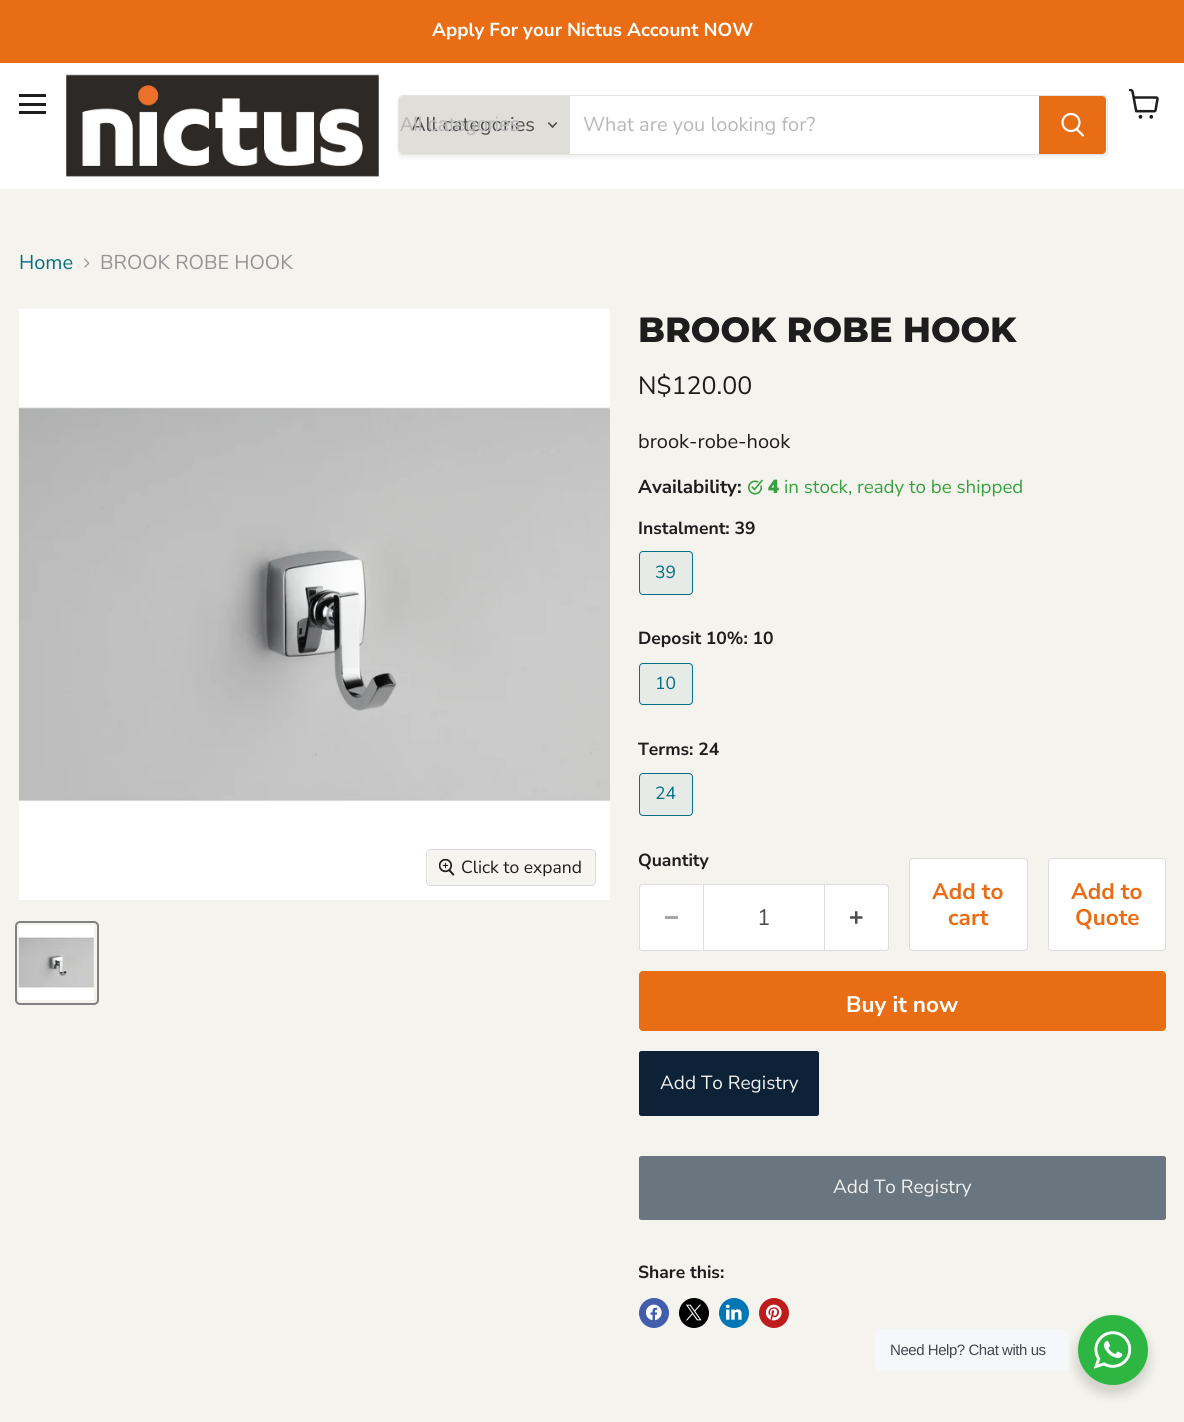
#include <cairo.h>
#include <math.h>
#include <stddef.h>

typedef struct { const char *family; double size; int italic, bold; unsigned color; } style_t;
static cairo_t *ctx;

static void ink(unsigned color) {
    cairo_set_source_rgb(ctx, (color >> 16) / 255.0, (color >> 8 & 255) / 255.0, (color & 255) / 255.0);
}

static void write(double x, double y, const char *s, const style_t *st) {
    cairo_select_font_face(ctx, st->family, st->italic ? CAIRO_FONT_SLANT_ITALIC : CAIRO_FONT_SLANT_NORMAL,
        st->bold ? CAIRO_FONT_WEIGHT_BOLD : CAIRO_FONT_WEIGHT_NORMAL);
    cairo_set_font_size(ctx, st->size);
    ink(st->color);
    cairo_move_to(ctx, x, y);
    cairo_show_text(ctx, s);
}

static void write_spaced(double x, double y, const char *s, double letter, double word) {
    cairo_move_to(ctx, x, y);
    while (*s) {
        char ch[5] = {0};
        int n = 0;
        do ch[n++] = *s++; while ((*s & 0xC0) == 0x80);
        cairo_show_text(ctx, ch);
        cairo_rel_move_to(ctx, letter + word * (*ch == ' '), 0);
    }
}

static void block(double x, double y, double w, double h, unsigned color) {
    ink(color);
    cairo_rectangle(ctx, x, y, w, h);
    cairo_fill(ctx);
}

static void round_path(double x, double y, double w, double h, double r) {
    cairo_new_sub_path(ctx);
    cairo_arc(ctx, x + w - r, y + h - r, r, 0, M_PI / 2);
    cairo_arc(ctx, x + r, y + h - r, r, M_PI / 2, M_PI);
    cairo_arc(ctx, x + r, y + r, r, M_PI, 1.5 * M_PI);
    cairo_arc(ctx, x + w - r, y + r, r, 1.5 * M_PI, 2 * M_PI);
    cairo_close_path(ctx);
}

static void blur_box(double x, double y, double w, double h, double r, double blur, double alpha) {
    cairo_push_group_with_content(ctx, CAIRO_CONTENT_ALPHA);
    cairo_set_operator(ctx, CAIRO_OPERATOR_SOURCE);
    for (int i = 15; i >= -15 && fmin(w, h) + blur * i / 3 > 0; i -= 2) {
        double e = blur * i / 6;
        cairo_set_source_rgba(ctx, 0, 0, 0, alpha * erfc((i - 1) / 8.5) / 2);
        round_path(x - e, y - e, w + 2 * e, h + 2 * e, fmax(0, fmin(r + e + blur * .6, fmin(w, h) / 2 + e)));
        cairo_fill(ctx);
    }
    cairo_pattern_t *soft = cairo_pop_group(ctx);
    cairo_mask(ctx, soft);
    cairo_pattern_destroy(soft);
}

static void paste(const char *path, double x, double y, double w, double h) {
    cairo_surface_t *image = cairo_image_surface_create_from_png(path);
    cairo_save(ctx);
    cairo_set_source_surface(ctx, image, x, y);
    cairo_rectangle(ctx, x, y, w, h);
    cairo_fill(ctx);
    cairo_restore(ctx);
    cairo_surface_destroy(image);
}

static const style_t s1 = {"Nunito Sans", 18.75, 0, 1, 0xffffff};
static const style_t s2 = {"Nunito Sans", 20, 0, 0, 0x4d4d4d};
static const style_t s3 = {"Liberation Sans", 20, 0, 0, 0xb8b8b8};
static const style_t s4 = {"Nunito Sans", 20, 0, 0, 0xb8b8b8};
static const style_t s5 = {"Nunito Sans", 20, 0, 0, 0x046e82};
static const style_t s6 = {"Nunito Sans", 20, 0, 0, 0x949494};
static const style_t s7 = {"Nunito Sans", 17.5, 0, 0, 0x1d1d1d};
static const style_t s8 = {"Montserrat ExtraBold", 35, 0, 0, 0x1d1d1d};
static const style_t s9 = {"Nunito Sans", 25, 0, 0, 0x1d1d1d};
static const style_t s10 = {"Nunito Sans", 20, 0, 0, 0x1d1d1d};
static const style_t s11 = {"Nunito Sans", 18.75, 0, 1, 0x1d1d1d};
static const style_t s12 = {"Noto Sans Black", 18.75, 0, 0, 0x38a13f};
static const style_t s13 = {"Nunito Sans", 18.75, 0, 0, 0x38a13f};
static const style_t s14 = {"Nunito Sans", 17.5, 0, 1, 0x1d1d1d};
static const style_t s15 = {"Nunito Sans", 17.5, 0, 0, 0x046e82};
static const style_t s16 = {"Nunito Sans", 22.5, 0, 0, 0x4d4d4d};
static const style_t s17 = {"Nunito Sans", 22.5, 0, 1, 0xe96d14};
static const style_t s18 = {"Nunito Sans", 22.5, 0, 1, 0xffffff};
static const style_t s19 = {"Nunito Sans", 19, 0, 0, 0xf1f1f1};

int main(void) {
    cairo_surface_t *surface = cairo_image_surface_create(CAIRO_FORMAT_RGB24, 1184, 1422);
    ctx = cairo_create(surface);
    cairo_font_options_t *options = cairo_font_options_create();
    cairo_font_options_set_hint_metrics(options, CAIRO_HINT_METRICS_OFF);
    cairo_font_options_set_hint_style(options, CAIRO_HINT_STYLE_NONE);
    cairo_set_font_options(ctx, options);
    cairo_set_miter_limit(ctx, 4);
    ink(0xf5f3ed);
    cairo_paint(ctx);
    block(0, 0, 1184, 63, 0xe96d14);
    write(432, 36, "Apply For your Nictus Account NOW", &s1);
    block(0, 63, 1184, 126, 0xffffff);
    block(19, 94, 27, 3, 0x1d1d1d);
    block(19, 103, 27, 3, 0x1d1d1d);
    block(19, 111, 27, 3, 0x1d1d1d);
    paste("pic1.png", 1129, 89, 30, 30);
    paste("pic2.png", 66, 74, 313, 103);
    cairo_save(ctx);
    cairo_set_fill_rule(ctx, CAIRO_FILL_RULE_EVEN_ODD);
    cairo_new_path(ctx);
    cairo_move_to(ctx, 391, 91);
    cairo_line_to(ctx, 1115, 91);
    cairo_line_to(ctx, 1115, 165);
    cairo_line_to(ctx, 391, 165);
    cairo_close_path(ctx);
    cairo_move_to(ctx, 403, 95);
    cairo_line_to(ctx, 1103, 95);
    cairo_curve_to(ctx, 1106, 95, 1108, 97, 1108, 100);
    cairo_line_to(ctx, 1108, 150);
    cairo_curve_to(ctx, 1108, 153, 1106, 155, 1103, 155);
    cairo_line_to(ctx, 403, 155);
    cairo_curve_to(ctx, 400, 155, 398, 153, 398, 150);
    cairo_line_to(ctx, 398, 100);
    cairo_curve_to(ctx, 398, 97, 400, 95, 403, 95);
    cairo_close_path(ctx);
    cairo_clip(ctx);
    ink(0x7b7a77);
    blur_box(398, 98, 710, 60, 5, 2, 0.11);
    cairo_restore(ctx);
    round_path(398.5, 95.5, 709, 59, 4.5);
    cairo_set_source_rgba(ctx, 0.482, 0.478, 0.467, 0.2);
    cairo_set_line_width(ctx, 1);
    cairo_stroke(ctx);
    ink(0xdfded8);
    cairo_new_path(ctx);
    cairo_move_to(ctx, 403, 96);
    cairo_line_to(ctx, 570, 96);
    cairo_line_to(ctx, 570, 154);
    cairo_line_to(ctx, 403, 154);
    cairo_curve_to(ctx, 401, 154, 399, 152, 399, 150);
    cairo_line_to(ctx, 399, 100);
    cairo_curve_to(ctx, 399, 98, 401, 96, 403, 96);
    cairo_close_path(ctx);
    cairo_fill(ctx);
    write(411, 131, "All categories", &s2);
    write(400, 131, "All categories", &s3);
    paste("pic3.png", 548, 122, 10, 6);
    write(583, 131, "What are you looking for?", &s4);
    ink(0xe96d14);
    cairo_new_path(ctx);
    cairo_move_to(ctx, 1039.5, 96.5);
    cairo_line_to(ctx, 1102, 96.5);
    cairo_curve_to(ctx, 1104, 96.5, 1105.5, 98, 1105.5, 100);
    cairo_line_to(ctx, 1105.5, 150);
    cairo_curve_to(ctx, 1105.5, 152, 1104, 153.5, 1102, 153.5);
    cairo_line_to(ctx, 1039.5, 153.5);
    cairo_close_path(ctx);
    cairo_fill_preserve(ctx);
    cairo_stroke(ctx);
    cairo_new_path(ctx);
    cairo_move_to(ctx, 1083, 135.5);
    cairo_line_to(ctx, 1077, 129.5);
    ink(0xffffff);
    cairo_set_line_width(ctx, 2.2);
    cairo_set_line_cap(ctx, CAIRO_LINE_CAP_ROUND);
    cairo_stroke(ctx);
    cairo_arc(ctx, 1071, 122.5, 8.5, 0, 2 * M_PI);
    cairo_set_line_cap(ctx, CAIRO_LINE_CAP_BUTT);
    cairo_stroke(ctx);
    write(19, 269, "Home", &s5);
    paste("pic4.png", 84, 258, 6, 10);
    write(100, 269, "BROOK ROBE HOOK", &s6);
    paste("pic5.png", 18, 309, 592, 591);
    round_path(426.5, 849.5, 169, 36, 4.5);
    ink(0xd9d9d9);
    cairo_set_line_width(ctx, 1);
    cairo_stroke(ctx);
    cairo_set_source_rgba(ctx, 0.961, 0.953, 0.929, 0.9);
    round_path(428, 850, 167, 35, 4);
    cairo_fill(ctx);
    paste("pic6.png", 439, 859, 16, 17);
    write(461, 873, "Click to expand", &s7);
    round_path(16, 922, 82, 82, 4);
    ink(0x818181);
    cairo_set_line_width(ctx, 2);
    cairo_stroke(ctx);
    paste("pic7.png", 18, 925, 76, 75);
    write(638, 342, "BROOK ROBE HOOK", &s8);
    write(638, 394, "N$120.00", &s9);
    write(638, 448, "brook-robe-hook", &s10);
    write(638, 493, "Availability:", &s11);
    paste("pic8.png", 748, 479, 15, 16);
    write(768, 493, "4", &s12);
    write(784, 493, "in stock, ready to be shipped", &s13);
    write(638, 534, "Instalment: 39", &s14);
    ink(0xe7ebe7);
    round_path(639.5, 551.5, 53, 43, 3.5);
    cairo_fill_preserve(ctx);
    ink(0x046e82);
    cairo_set_line_width(ctx, 1);
    cairo_stroke(ctx);
    write(655, 578, "39", &s15);
    write(638, 644, "Deposit 10%: 10", &s14);
    ink(0xe7ebe7);
    round_path(639.5, 663.5, 53, 41, 3.5);
    cairo_fill_preserve(ctx);
    ink(0x046e82);
    cairo_stroke(ctx);
    write(655, 689, "10", &s15);
    write(638, 755, "Terms: 24", &s14);
    ink(0xe7ebe7);
    round_path(639.5, 773.5, 53, 42, 3.5);
    cairo_fill_preserve(ctx);
    ink(0x046e82);
    cairo_stroke(ctx);
    write(655, 799, "24", &s15);
    write(638, 866, "Quantity", &s14);
    ink(0xffffff);
    cairo_new_path(ctx);
    cairo_move_to(ctx, 643, 884);
    cairo_line_to(ctx, 703, 884);
    cairo_line_to(ctx, 703, 951);
    cairo_line_to(ctx, 643, 951);
    cairo_curve_to(ctx, 641, 951, 639, 949, 639, 947);
    cairo_line_to(ctx, 639, 888);
    cairo_curve_to(ctx, 639, 886, 641, 884, 643, 884);
    cairo_close_path(ctx);
    cairo_fill(ctx);
    ink(0xdddddd);
    cairo_set_fill_rule(ctx, CAIRO_FILL_RULE_EVEN_ODD);
    cairo_new_path(ctx);
    cairo_move_to(ctx, 642, 884);
    cairo_line_to(ctx, 702, 884);
    cairo_line_to(ctx, 702, 951);
    cairo_line_to(ctx, 642, 951);
    cairo_curve_to(ctx, 640, 951, 639, 950, 639, 948);
    cairo_line_to(ctx, 639, 888);
    cairo_curve_to(ctx, 639, 885, 640, 884, 642, 884);
    cairo_close_path(ctx);
    cairo_move_to(ctx, 642, 885);
    cairo_line_to(ctx, 702, 885);
    cairo_line_to(ctx, 702, 950);
    cairo_line_to(ctx, 642, 950);
    cairo_curve_to(ctx, 641, 950, 640, 949, 640, 948);
    cairo_line_to(ctx, 640, 888);
    cairo_curve_to(ctx, 640, 886, 641, 885, 642, 885);
    cairo_close_path(ctx);
    cairo_fill(ctx);
    block(665, 916, 13, 3, 0xa6a6a6);
    ink(0xffffff);
    cairo_rectangle(ctx, 703.5, 884.5, 121, 66);
    cairo_fill_preserve(ctx);
    ink(0xdddddd);
    cairo_stroke(ctx);
    write(757, 925, "1", &s16);
    ink(0xffffff);
    cairo_new_path(ctx);
    cairo_move_to(ctx, 825, 884);
    cairo_line_to(ctx, 885, 884);
    cairo_curve_to(ctx, 887, 884, 889, 886, 889, 888);
    cairo_line_to(ctx, 889, 947);
    cairo_curve_to(ctx, 889, 949, 887, 951, 885, 951);
    cairo_line_to(ctx, 825, 951);
    cairo_close_path(ctx);
    cairo_fill(ctx);
    ink(0xdddddd);
    cairo_new_path(ctx);
    cairo_move_to(ctx, 825, 884);
    cairo_line_to(ctx, 885, 884);
    cairo_curve_to(ctx, 887, 884, 889, 885, 889, 888);
    cairo_line_to(ctx, 889, 948);
    cairo_curve_to(ctx, 889, 950, 887, 951, 885, 951);
    cairo_line_to(ctx, 825, 951);
    cairo_close_path(ctx);
    cairo_move_to(ctx, 825, 885);
    cairo_line_to(ctx, 885, 885);
    cairo_curve_to(ctx, 886, 885, 888, 886, 888, 888);
    cairo_line_to(ctx, 888, 948);
    cairo_curve_to(ctx, 888, 949, 886, 950, 885, 950);
    cairo_line_to(ctx, 825, 950);
    cairo_close_path(ctx);
    cairo_fill(ctx);
    paste("pic9.png", 850, 911, 13, 13);
    ink(0xffffff);
    round_path(909.5, 858.5, 118, 92, 3.5);
    cairo_fill_preserve(ctx);
    ink(0xdddddd);
    cairo_stroke(ctx);
    write(932, 899, "Add to", &s17);
    write(948, 925, "cart", &s17);
    ink(0xffffff);
    round_path(1048.5, 858.5, 117, 92, 3.5);
    cairo_fill_preserve(ctx);
    ink(0xdddddd);
    cairo_stroke(ctx);
    write(1071, 899, "Add to", &s17);
    write(1075, 925, "Quote", &s17);
    round_path(639.5, 971.5, 526, 59, 3.5);
    cairo_fill_preserve(ctx);
    cairo_stroke(ctx);
    write(846, 1012, "Buy it now", &s18);
    ink(0x0d2236);
    round_path(639.5, 1051.5, 179, 64, 2);
    cairo_fill_preserve(ctx);
    cairo_stroke(ctx);
    write(660, 1089, "Add To Registry", &s19);
    ink(0x6a767f);
    round_path(639.5, 1156.5, 526, 63, 2);
    cairo_fill_preserve(ctx);
    cairo_stroke(ctx);
    write(833, 1193, "Add To Registry", &s19);
    write(638, 1278, "Share this:", &s14);
    ink(0x425dab);
    cairo_new_path(ctx);
    cairo_arc(ctx, 654, 1313, 15, 0, 2 * M_PI);
    cairo_fill(ctx);
    paste("pic10.png", 645, 1304, 17, 17);
    ink(0x000000);
    cairo_arc(ctx, 694, 1313, 15, 0, 2 * M_PI);
    cairo_fill(ctx);
    paste("pic11.png", 686, 1304, 16, 17);
    ink(0x0077b5);
    cairo_arc(ctx, 734, 1313, 15, 0, 2 * M_PI);
    cairo_fill(ctx);
    paste("pic12.png", 725, 1304, 17, 16);
    ink(0xbd1c1c);
    cairo_arc(ctx, 774, 1313, 15, 0, 2 * M_PI);
    cairo_fill(ctx);
    paste("pic13.png", 765, 1304, 17, 17);
    ink(0x000000);
    blur_box(1075, 1320, 75, 75, 37.5, 5, 0.14);
    ink(0xf5f7f9);
    round_path(875, 1329, 194, 42, 5);
    cairo_fill(ctx);
    cairo_select_font_face(ctx, "Liberation Sans", CAIRO_FONT_SLANT_NORMAL, CAIRO_FONT_WEIGHT_NORMAL);
    cairo_set_font_size(ctx, 15);
    ink(0x43474e);
    write_spaced(890, 1355, "Need Help? Chat with us", -0.45, 0);
    ink(0x2db742);
    cairo_new_path(ctx);
    cairo_arc(ctx, 1113, 1350, 35, 0, 2 * M_PI);
    cairo_fill(ctx);
    paste("pic14.png", 1094, 1331, 37, 38);
    cairo_surface_write_to_png(surface, "screenshot.png");
    cairo_font_options_destroy(options);
    cairo_destroy(ctx);
    cairo_surface_destroy(surface);
    return 0;
}
